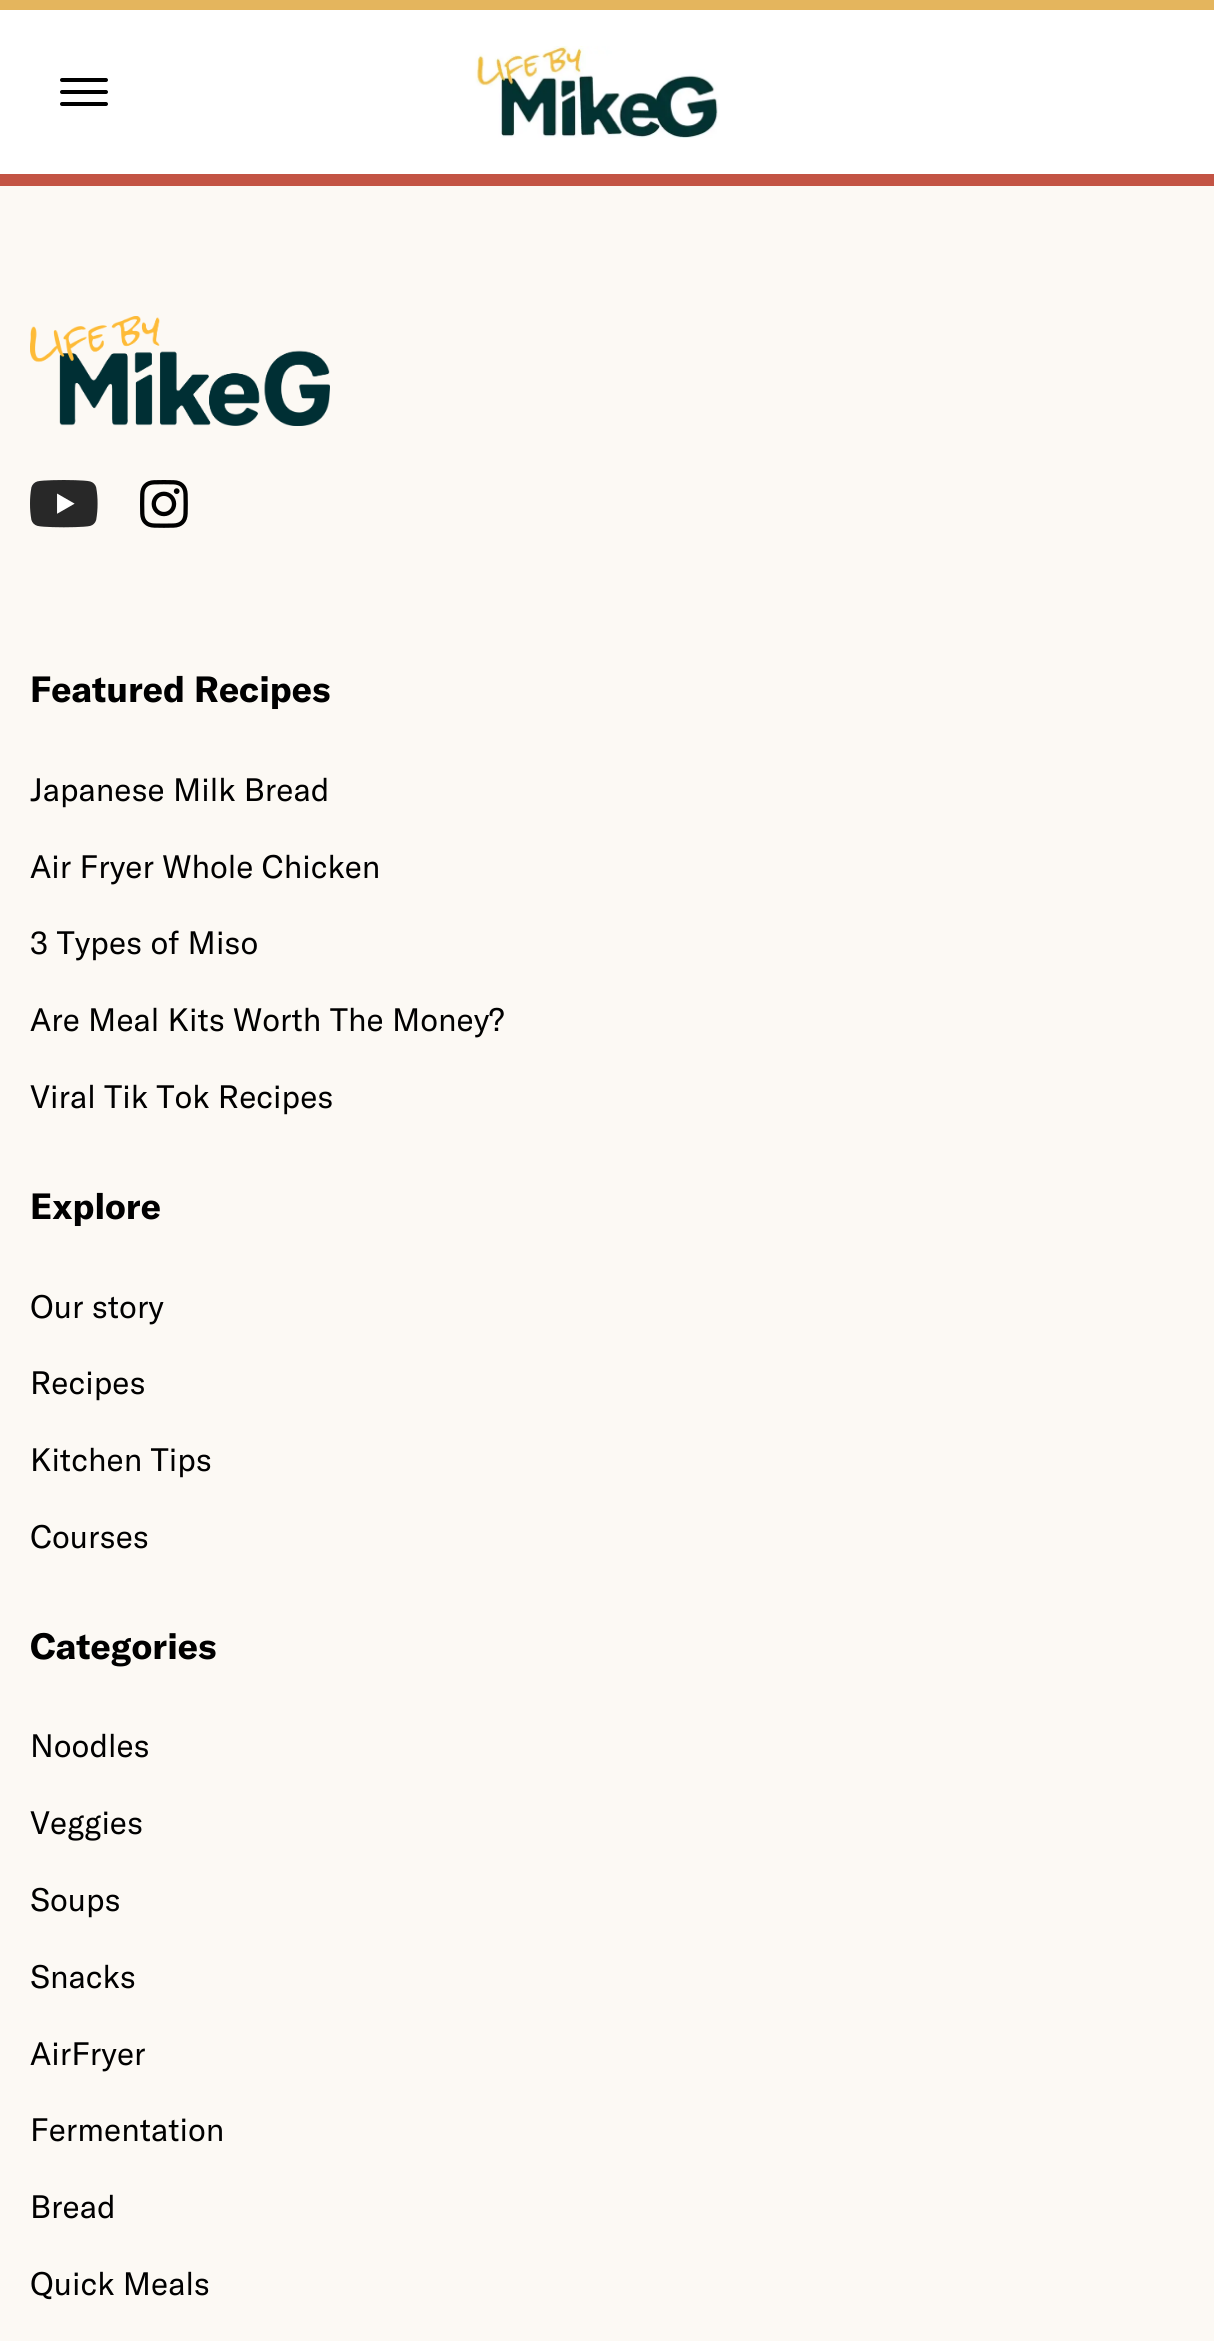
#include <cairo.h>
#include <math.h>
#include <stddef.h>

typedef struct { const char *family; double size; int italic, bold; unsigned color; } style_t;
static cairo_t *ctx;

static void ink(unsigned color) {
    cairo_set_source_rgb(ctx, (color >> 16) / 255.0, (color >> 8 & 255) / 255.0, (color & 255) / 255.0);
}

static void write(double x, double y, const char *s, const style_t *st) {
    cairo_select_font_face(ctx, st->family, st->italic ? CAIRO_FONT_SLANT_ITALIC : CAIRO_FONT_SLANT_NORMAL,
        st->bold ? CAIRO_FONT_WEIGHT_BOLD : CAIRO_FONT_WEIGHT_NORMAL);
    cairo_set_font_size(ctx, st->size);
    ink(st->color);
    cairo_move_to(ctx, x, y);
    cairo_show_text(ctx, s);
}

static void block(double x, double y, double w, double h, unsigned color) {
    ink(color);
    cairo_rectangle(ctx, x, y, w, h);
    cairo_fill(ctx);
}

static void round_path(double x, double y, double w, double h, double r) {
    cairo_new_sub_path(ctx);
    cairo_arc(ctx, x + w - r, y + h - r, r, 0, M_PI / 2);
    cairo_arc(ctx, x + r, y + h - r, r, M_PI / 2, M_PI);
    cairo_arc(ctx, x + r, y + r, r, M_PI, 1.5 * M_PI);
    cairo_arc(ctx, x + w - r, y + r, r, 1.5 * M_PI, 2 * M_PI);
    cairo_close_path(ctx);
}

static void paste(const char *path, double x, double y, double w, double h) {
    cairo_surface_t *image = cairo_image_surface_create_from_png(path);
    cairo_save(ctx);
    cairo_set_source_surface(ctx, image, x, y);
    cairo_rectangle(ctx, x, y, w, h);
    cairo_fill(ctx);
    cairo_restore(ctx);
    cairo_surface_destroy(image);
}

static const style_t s1 = {"GT America", 36, 0, 1, 0x000000};
static const style_t s2 = {"GT America", 32, 0, 0, 0x000000};

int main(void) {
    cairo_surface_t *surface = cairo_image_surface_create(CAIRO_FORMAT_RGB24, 1214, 2341);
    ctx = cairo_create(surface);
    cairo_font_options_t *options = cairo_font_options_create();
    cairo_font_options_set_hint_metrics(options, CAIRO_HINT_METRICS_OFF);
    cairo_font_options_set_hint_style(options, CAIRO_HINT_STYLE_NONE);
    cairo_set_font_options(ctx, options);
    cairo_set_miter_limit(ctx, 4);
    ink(0xffffff);
    cairo_paint(ctx);
    block(0, 0, 1214, 10, 0xe4b55d);
    ink(0x000000);
    round_path(60, 78, 48, 4, 2);
    cairo_fill(ctx);
    round_path(60, 90, 48, 4, 2);
    cairo_fill(ctx);
    round_path(60, 102, 48, 4, 2);
    cairo_fill(ctx);
    paste("pic1.png", 475, 46, 245, 92);
    block(0, 174, 1214, 12, 0xc35444);
    block(0, 186, 1214, 2155, 0xfcf9f4);
    paste("pic2.png", 30, 316, 300, 110);
    paste("pic3.png", 30, 480, 68, 48);
    paste("pic4.png", 140, 480, 48, 48);
    write(30, 702, "Featured Recipes", &s1);
    write(30, 801, "Japanese Milk Bread", &s2);
    write(30, 878, "Air Fryer Whole Chicken", &s2);
    write(30, 954, "3 Types of Miso", &s2);
    write(30, 1031, "Are Meal Kits Worth The Money?", &s2);
    write(30, 1108, "Viral Tik Tok Recipes", &s2);
    write(30, 1219, "Explore", &s1);
    write(30, 1318, "Our story", &s2);
    write(30, 1394, "Recipes", &s2);
    write(30, 1471, "Kitchen Tips", &s2);
    write(30, 1548, "Courses", &s2);
    write(30, 1659, "Categories", &s1);
    write(30, 1757, "Noodles", &s2);
    write(30, 1834, "Veggies", &s2);
    write(30, 1911, "Soups", &s2);
    write(30, 1988, "Snacks", &s2);
    write(30, 2065, "AirFryer", &s2);
    write(30, 2141, "Fermentation", &s2);
    write(30, 2218, "Bread", &s2);
    write(30, 2295, "Quick Meals", &s2);
    cairo_surface_write_to_png(surface, "screenshot.png");
    cairo_font_options_destroy(options);
    cairo_destroy(ctx);
    cairo_surface_destroy(surface);
    return 0;
}
